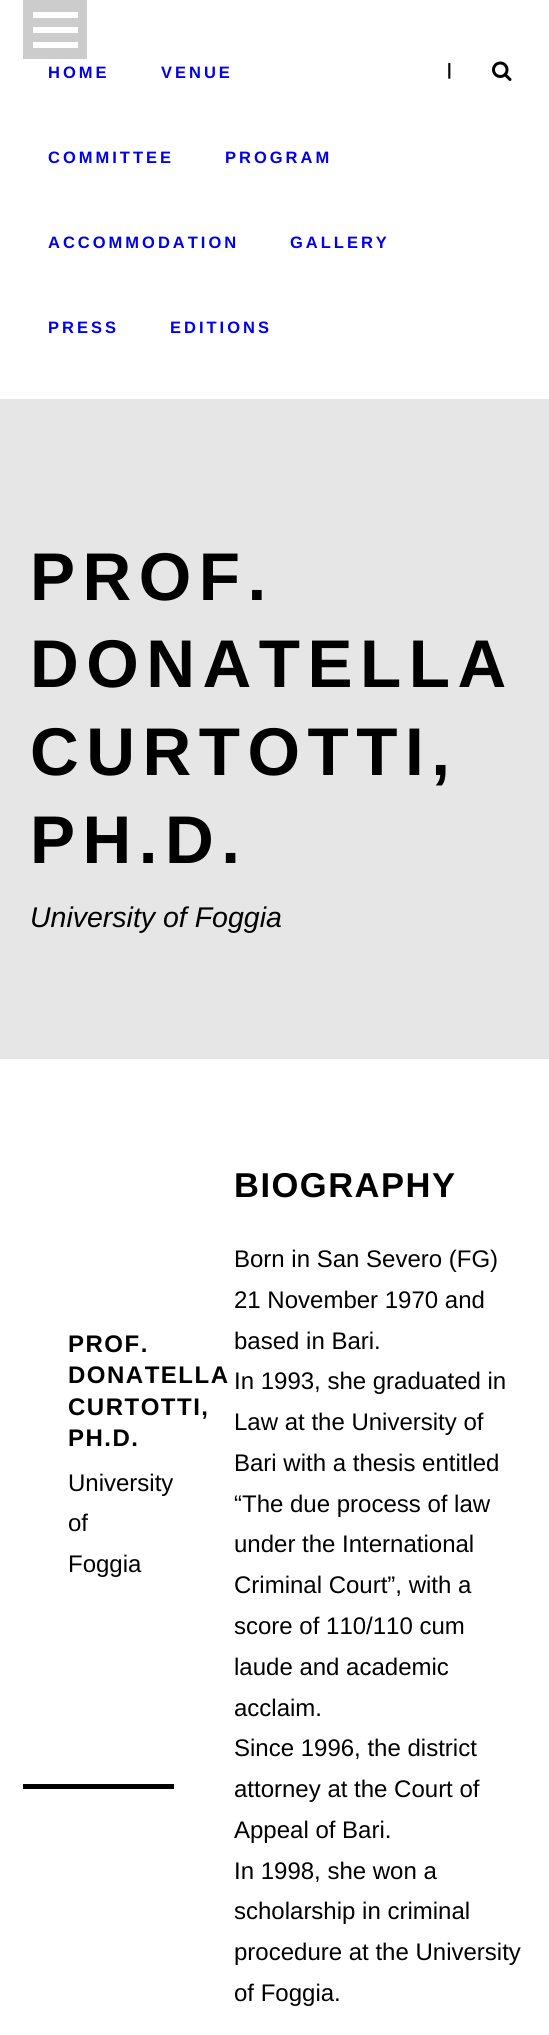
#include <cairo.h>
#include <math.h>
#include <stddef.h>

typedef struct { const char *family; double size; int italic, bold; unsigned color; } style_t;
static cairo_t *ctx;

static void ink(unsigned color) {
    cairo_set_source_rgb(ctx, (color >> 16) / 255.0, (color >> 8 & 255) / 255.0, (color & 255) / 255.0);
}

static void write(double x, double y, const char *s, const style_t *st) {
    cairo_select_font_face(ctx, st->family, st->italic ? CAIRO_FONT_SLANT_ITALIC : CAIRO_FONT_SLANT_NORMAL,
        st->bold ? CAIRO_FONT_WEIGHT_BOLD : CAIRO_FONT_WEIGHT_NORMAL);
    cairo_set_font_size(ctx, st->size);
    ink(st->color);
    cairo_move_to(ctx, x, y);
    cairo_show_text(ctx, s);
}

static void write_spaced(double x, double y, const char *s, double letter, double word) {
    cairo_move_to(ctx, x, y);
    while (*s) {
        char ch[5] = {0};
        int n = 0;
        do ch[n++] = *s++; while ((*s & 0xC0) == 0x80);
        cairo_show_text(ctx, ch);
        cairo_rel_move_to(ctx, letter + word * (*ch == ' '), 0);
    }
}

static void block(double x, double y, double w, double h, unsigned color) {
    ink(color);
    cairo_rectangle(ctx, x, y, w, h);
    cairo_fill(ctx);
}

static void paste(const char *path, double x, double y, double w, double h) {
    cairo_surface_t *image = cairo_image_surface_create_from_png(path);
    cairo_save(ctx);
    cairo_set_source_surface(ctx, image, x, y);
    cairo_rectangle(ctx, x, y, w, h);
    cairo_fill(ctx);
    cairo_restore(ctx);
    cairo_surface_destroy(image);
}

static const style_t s1 = {"Liberation Sans", 16.5, 0, 1, 0x000000};
static const style_t s2 = {"Liberation Sans", 28.5, 1, 0, 0x000000};
static const style_t s3 = {"Liberation Sans", 24, 0, 0, 0x000000};

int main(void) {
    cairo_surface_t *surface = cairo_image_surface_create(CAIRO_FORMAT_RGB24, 549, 2035);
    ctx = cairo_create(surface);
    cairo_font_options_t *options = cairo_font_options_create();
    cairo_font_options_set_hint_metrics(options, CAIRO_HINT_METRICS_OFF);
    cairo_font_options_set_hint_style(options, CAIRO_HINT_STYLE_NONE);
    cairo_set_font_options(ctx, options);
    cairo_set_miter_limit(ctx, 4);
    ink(0xffffff);
    cairo_paint(ctx);
    block(23, 0, 64, 59, 0xcccccc);
    block(33, 42, 45, 6, 0xffffff);
    block(33, 27, 45, 6, 0xffffff);
    block(33, 12, 45, 6, 0xffffff);
    cairo_select_font_face(ctx, "Liberation Sans", CAIRO_FONT_SLANT_NORMAL, CAIRO_FONT_WEIGHT_BOLD);
    cairo_set_font_size(ctx, 16.5);
    ink(0x0000ee);
    write_spaced(48, 78, "HOME", 3, 0);
    write_spaced(161, 78, "VENUE", 3, 0);
    write_spaced(48, 163, "COMMITTEE", 3, 0);
    write_spaced(225, 163, "PROGRAM", 3, 0);
    write_spaced(48, 248, "ACCOMMODATION", 3, 0);
    write_spaced(290, 248, "GALLERY", 3, 0);
    write_spaced(48, 333, "PRESS", 3, 0);
    write_spaced(170, 333, "EDITIONS", 3, 0);
    write(447, 75, "|", &s1);
    paste("pic1.png", 492, 61, 20, 20);
    block(0, 399, 549, 660, 0xe6e6e6);
    cairo_set_font_size(ctx, 67.5);
    ink(0x000000);
    write_spaced(30, 600, "PROF.", 7.5, 0);
    write_spaced(30, 687, "DONATELLA", 7.5, 0);
    write_spaced(30, 775, "CURTOTTI,", 7.5, 0);
    write_spaced(30, 863, "PH.D.", 7.5, 0);
    write(30, 927, "University of Foggia", &s2);
    block(23, 1784, 151, 5, 0x000000);
    cairo_select_font_face(ctx, "Liberation Sans", CAIRO_FONT_SLANT_NORMAL, CAIRO_FONT_WEIGHT_BOLD);
    cairo_set_font_size(ctx, 24);
    write_spaced(68, 1352, "PROF.", 1.5, 0);
    write_spaced(68, 1383, "DONATELLA", 1.5, 0);
    write_spaced(68, 1415, "CURTOTTI,", 1.5, 0);
    write_spaced(68, 1446, "PH.D.", 1.5, 0);
    write(68, 1491, "University", &s3);
    write(68, 1531, "of", &s3);
    write(68, 1572, "Foggia", &s3);
    cairo_select_font_face(ctx, "Liberation Sans", CAIRO_FONT_SLANT_NORMAL, CAIRO_FONT_WEIGHT_BOLD);
    cairo_set_font_size(ctx, 34.5);
    write_spaced(234, 1197, "BIOGRAPHY", 1.5, 0);
    write(234, 1267, "Born in San Severo (FG)", &s3);
    write(234, 1308, "21 November 1970 and", &s3);
    write(234, 1349, "based in Bari.", &s3);
    write(234, 1389, "In 1993, she graduated in", &s3);
    write(234, 1430, "Law at the University of", &s3);
    write(234, 1471, "Bari with a thesis entitled", &s3);
    write(234, 1512, "“The due process of law", &s3);
    write(234, 1552, "under the International", &s3);
    write(234, 1593, "Criminal Court”, with a", &s3);
    write(234, 1634, "score of 110/110 cum", &s3);
    write(234, 1675, "laude and academic", &s3);
    write(234, 1716, "acclaim.", &s3);
    write(234, 1756, "Since 1996, the district", &s3);
    write(234, 1797, "attorney at the Court of", &s3);
    write(234, 1838, "Appeal of Bari.", &s3);
    write(234, 1879, "In 1998, she won a", &s3);
    write(234, 1919, "scholarship in criminal", &s3);
    write(234, 1960, "procedure at the University", &s3);
    write(234, 2001, "of Foggia.", &s3);
    cairo_surface_write_to_png(surface, "screenshot.png");
    cairo_font_options_destroy(options);
    cairo_destroy(ctx);
    cairo_surface_destroy(surface);
    return 0;
}
